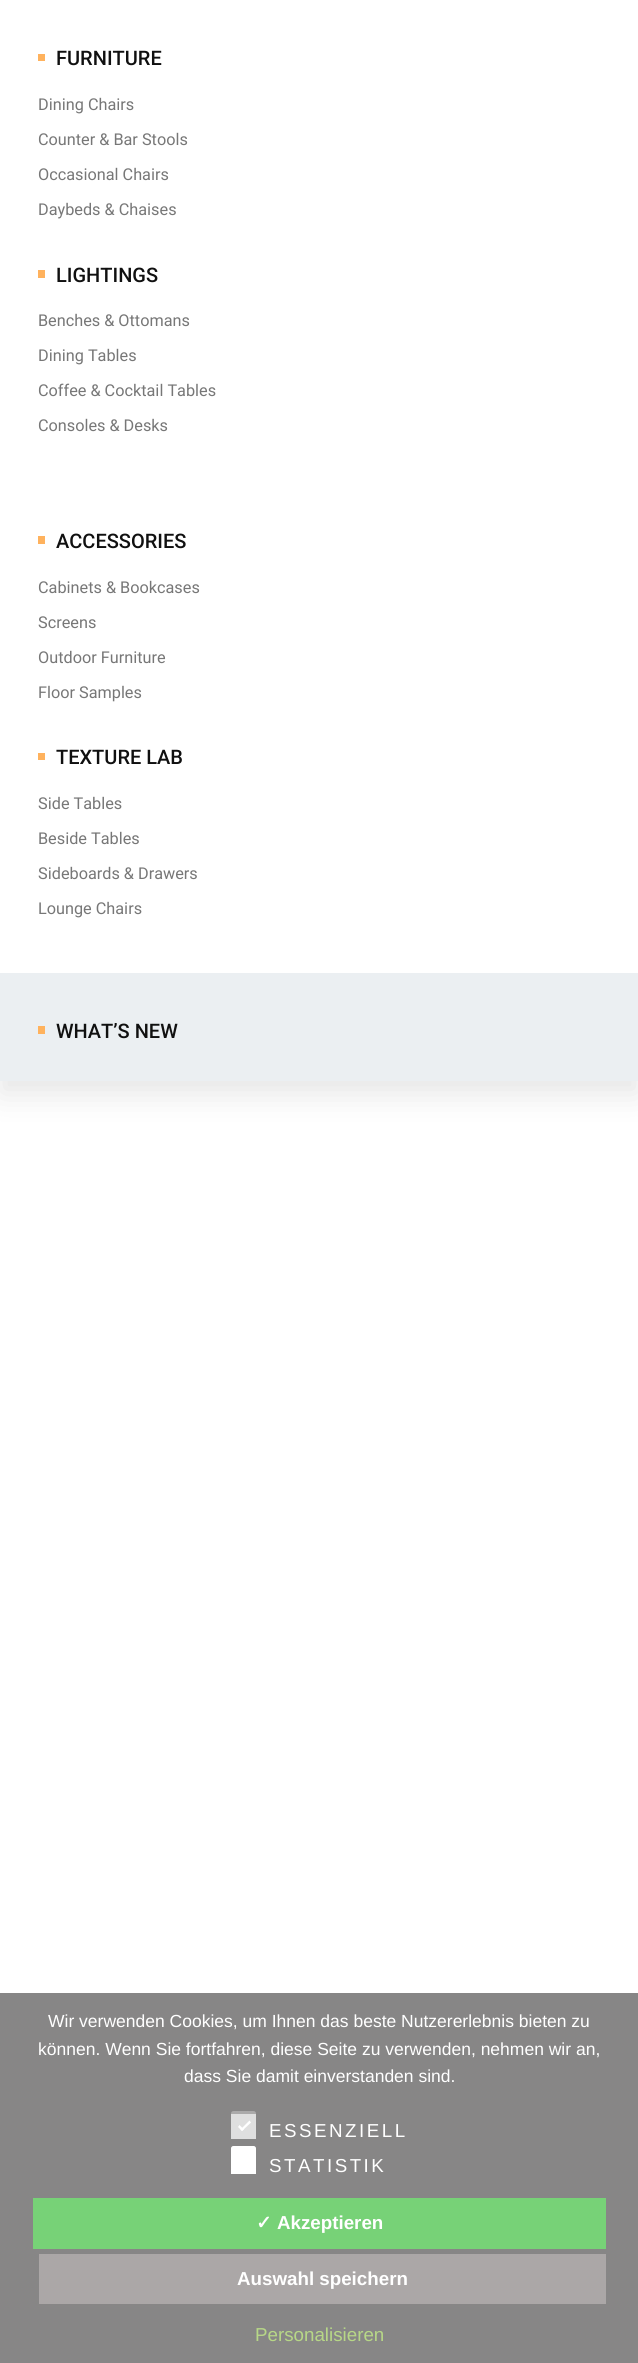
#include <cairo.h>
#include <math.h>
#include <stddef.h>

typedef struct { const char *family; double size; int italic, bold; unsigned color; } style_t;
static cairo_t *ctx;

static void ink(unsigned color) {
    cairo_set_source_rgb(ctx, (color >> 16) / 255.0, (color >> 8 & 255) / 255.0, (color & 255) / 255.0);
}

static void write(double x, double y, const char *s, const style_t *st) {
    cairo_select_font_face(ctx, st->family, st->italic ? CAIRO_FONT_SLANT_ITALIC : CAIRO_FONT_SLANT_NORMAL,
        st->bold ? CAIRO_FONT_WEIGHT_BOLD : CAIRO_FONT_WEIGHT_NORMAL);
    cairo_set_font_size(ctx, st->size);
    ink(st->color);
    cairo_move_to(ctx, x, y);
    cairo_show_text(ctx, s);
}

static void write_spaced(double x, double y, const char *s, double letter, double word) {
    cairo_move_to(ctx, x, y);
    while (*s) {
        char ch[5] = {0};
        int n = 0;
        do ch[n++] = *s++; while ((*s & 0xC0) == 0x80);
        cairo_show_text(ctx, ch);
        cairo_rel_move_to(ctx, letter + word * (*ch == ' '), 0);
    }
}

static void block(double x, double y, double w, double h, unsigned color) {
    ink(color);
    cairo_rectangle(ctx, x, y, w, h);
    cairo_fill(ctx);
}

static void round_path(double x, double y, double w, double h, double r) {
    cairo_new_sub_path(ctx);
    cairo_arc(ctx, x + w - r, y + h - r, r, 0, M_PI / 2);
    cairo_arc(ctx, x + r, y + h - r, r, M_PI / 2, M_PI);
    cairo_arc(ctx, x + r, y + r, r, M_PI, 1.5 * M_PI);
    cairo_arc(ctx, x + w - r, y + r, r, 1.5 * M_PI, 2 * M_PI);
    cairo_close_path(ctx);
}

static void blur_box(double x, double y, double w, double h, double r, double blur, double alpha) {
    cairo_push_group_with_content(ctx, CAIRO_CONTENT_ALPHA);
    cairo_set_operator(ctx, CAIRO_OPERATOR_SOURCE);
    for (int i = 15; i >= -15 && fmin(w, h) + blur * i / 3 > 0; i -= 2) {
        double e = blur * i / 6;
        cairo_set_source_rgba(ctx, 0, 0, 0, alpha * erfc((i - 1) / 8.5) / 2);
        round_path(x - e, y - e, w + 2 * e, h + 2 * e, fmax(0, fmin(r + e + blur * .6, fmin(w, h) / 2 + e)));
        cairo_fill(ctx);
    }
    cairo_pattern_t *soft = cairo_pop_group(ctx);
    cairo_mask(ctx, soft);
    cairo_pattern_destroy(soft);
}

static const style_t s1 = {"Roboto Medium", 20, 0, 0, 0x101010};
static const style_t s2 = {"Heebo", 16.25, 0, 0, 0x777777};
static const style_t s3 = {"Liberation Sans", 17.5, 0, 0, 0xffffff};
static const style_t s4 = {"DejaVu Sans", 18.75, 0, 1, 0xffffff};
static const style_t s5 = {"Liberation Sans", 18.75, 0, 1, 0xffffff};
static const style_t s6 = {"Liberation Sans", 18.75, 0, 0, 0xb7d787};

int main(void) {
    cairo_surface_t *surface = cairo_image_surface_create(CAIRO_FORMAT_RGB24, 638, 2363);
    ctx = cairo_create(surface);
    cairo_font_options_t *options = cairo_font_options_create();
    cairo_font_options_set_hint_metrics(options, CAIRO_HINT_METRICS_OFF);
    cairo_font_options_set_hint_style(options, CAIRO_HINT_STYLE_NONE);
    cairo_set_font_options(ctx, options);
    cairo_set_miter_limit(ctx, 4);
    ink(0xffffff);
    cairo_paint(ctx);
    ink(0x000000);
    blur_box(0, 13, 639, 1081, 0, 15.5, 0.1);
    block(0, 973, 638, 108, 0xebeff2);
    block(0, 0, 638, 973, 0xffffff);
    block(38, 54, 7, 7, 0xffb25d);
    write(56, 65, "FURNITURE", &s1);
    write(38, 110, "Dining Chairs", &s2);
    write(38, 145, "Counter & Bar Stools", &s2);
    write(38, 180, "Occasional Chairs", &s2);
    write(38, 215, "Daybeds & Chaises", &s2);
    block(38, 270, 7, 8, 0xffb25d);
    write(56, 282, "LIGHTINGS", &s1);
    write(38, 326, "Benches & Ottomans", &s2);
    write(38, 361, "Dining Tables", &s2);
    write(38, 396, "Coffee & Cocktail Tables", &s2);
    write(38, 431, "Consoles & Desks", &s2);
    block(38, 536, 7, 8, 0xffb25d);
    write(56, 548, "ACCESSORIES", &s1);
    write(38, 593, "Cabinets & Bookcases", &s2);
    write(38, 628, "Screens", &s2);
    write(38, 663, "Outdoor Furniture", &s2);
    write(38, 698, "Floor Samples", &s2);
    block(38, 753, 7, 7, 0xffb25d);
    write(56, 764, "TEXTURE LAB", &s1);
    write(38, 809, "Side Tables", &s2);
    write(38, 844, "Beside Tables", &s2);
    write(38, 879, "Sideboards & Drawers", &s2);
    write(38, 914, "Lounge Chairs", &s2);
    block(38, 1026, 7, 8, 0xffb25d);
    write(56, 1038, "WHAT’S NEW", &s1);
    block(0, 1993, 638, 370, 0x878686);
    write(48, 2027, "Wir verwenden Cookies, um Ihnen das beste Nutzererlebnis bieten zu", &s3);
    write(38, 2055, "können. Wenn Sie fortfahren, diese Seite zu verwenden, nehmen wir an,", &s3);
    write(184, 2082, "dass Sie damit einverstanden sind.", &s3);
    ink(0xabaaaa);
    round_path(231, 2111, 25, 25, 2.5);
    cairo_fill(ctx);
    block(231, 2114, 25, 25, 0xdfdfdf);
    ink(0xffffff);
    cairo_new_path(ctx);
    cairo_move_to(ctx, 249.5, 2120.5);
    cairo_line_to(ctx, 251, 2122.5);
    cairo_line_to(ctx, 242, 2131);
    cairo_line_to(ctx, 240.5, 2129.5);
    cairo_close_path(ctx);
    cairo_fill(ctx);
    cairo_new_path(ctx);
    cairo_move_to(ctx, 239.5, 2125);
    cairo_line_to(ctx, 244, 2129.5);
    cairo_line_to(ctx, 242, 2131);
    cairo_line_to(ctx, 238, 2127);
    cairo_close_path(ctx);
    cairo_fill(ctx);
    cairo_set_font_size(ctx, 18.75);
    write_spaced(269, 2137, "ESSENZIELL", 2.5, 0);
    round_path(231.5, 2146.5, 24, 24, 2);
    cairo_fill_preserve(ctx);
    cairo_set_line_width(ctx, 1);
    cairo_stroke(ctx);
    write_spaced(269, 2172, "STATISTIK", 2.5, 0);
    block(231, 2169, 25, 5, 0xffffff);
    block(33, 2198, 573, 51, 0x77d277);
    write(256, 2229, "✓", &s4);
    write(277, 2229, "Akzeptieren", &s5);
    block(39, 2254, 567, 50, 0xaba7a7);
    write(237, 2285, "Auswahl speichern", &s5);
    write(255, 2341, "Personalisieren", &s6);
    cairo_surface_write_to_png(surface, "screenshot.png");
    cairo_font_options_destroy(options);
    cairo_destroy(ctx);
    cairo_surface_destroy(surface);
    return 0;
}
